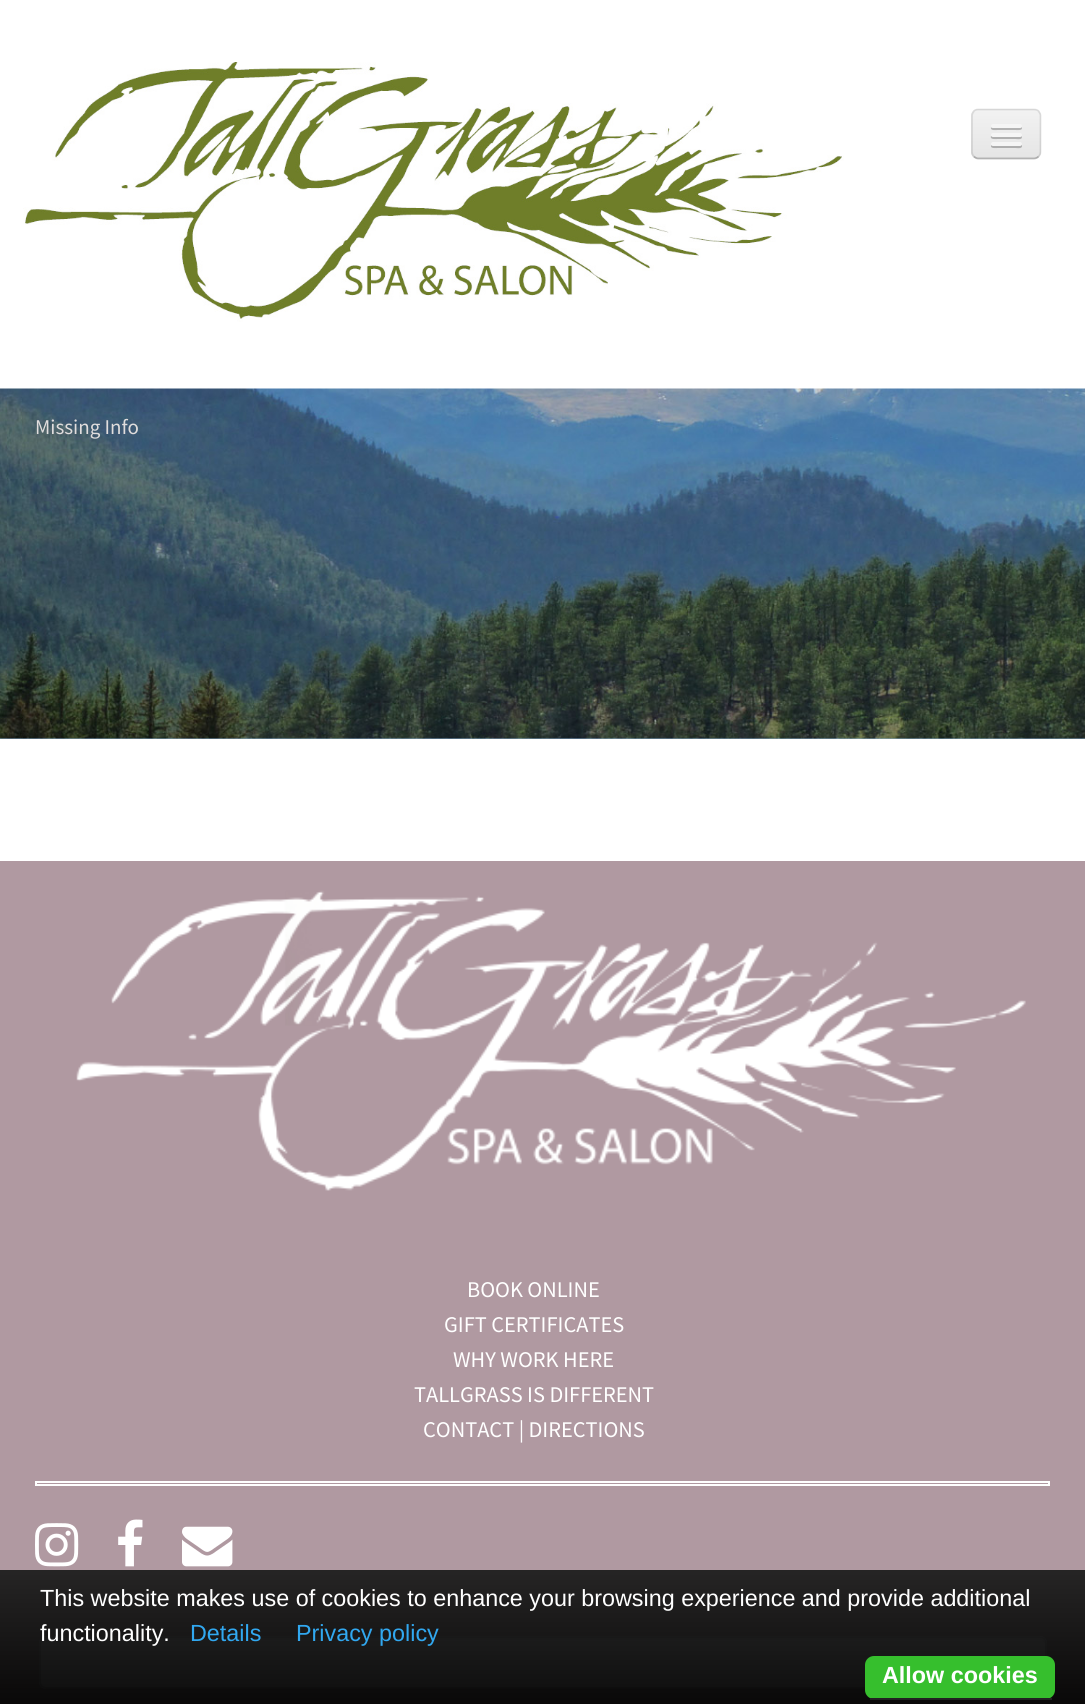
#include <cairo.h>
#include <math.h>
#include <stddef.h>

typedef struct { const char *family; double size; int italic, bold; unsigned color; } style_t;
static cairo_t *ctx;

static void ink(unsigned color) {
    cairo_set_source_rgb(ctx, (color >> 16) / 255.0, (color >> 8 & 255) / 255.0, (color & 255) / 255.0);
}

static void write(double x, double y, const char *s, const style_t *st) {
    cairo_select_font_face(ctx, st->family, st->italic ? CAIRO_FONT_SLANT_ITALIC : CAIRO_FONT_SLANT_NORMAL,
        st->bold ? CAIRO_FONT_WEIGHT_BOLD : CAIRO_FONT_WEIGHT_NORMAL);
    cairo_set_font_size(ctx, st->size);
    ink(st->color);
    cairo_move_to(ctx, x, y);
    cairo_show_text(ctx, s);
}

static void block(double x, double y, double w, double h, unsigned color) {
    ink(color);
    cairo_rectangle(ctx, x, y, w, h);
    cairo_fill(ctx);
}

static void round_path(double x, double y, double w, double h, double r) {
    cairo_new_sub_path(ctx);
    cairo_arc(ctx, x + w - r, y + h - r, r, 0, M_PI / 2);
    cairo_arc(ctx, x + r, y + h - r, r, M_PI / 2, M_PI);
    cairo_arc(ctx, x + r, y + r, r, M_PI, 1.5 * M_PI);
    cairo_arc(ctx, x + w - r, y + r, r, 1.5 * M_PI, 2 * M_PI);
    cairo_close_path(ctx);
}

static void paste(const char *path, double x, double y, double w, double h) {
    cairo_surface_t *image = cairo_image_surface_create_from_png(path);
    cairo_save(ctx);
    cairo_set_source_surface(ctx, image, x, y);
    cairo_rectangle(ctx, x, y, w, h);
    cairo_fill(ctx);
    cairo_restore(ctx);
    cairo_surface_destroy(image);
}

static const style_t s1 = {"Source Sans Pro", 21, 0, 0, 0xe0dddd};
static const style_t s2 = {"Source Sans Pro", 22.4, 0, 0, 0xffffff};
static const style_t s3 = {"Liberation Sans", 23.35, 0, 0, 0xffffff};
static const style_t s4 = {"Liberation Sans", 23.35, 0, 0, 0x31a8f0};
static const style_t s5 = {"Liberation Sans", 23.35, 0, 1, 0xffffff};

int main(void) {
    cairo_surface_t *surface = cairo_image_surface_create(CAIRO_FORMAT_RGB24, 1085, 1704);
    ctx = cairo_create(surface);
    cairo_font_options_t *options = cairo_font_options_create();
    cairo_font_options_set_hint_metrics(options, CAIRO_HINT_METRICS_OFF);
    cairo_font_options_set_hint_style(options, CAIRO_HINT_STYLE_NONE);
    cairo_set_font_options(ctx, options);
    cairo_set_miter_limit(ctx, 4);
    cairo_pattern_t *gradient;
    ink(0xffffff);
    cairo_paint(ctx);
    paste("pic1.png", 23, 62, 821, 260);
    ink(0xededed);
    round_path(971, 109, 70, 50, 7);
    cairo_fill(ctx);
    cairo_save(ctx);
    round_path(971, 109, 70, 50, 7);
    cairo_clip(ctx);
    gradient = cairo_pattern_create_linear(1006, 110, 1006, 158);
    cairo_pattern_add_color_stop_rgba(gradient, 0, 0.949, 0.949, 0.949, 1);
    cairo_pattern_add_color_stop_rgba(gradient, 1, 0.898, 0.898, 0.898, 1);
    cairo_set_source(ctx, gradient);
    cairo_pattern_destroy(gradient);
    cairo_rectangle(ctx, 971, 110, 70, 48);
    cairo_fill(ctx);
    cairo_restore(ctx);
    cairo_new_path(ctx);
    cairo_move_to(ctx, 1038.5, 156.5);
    cairo_curve_to(ctx, 1037.5, 157.5, 1036, 158.5, 1034, 158.5);
    cairo_line_to(ctx, 978, 158.5);
    cairo_curve_to(ctx, 976.5, 158.5, 975, 157.5, 974, 156.5);
    cairo_set_source_rgba(ctx, 0, 0, 0, 0.25);
    cairo_set_line_width(ctx, 1.8);
    cairo_stroke(ctx);
    cairo_new_path(ctx);
    cairo_move_to(ctx, 974, 156.5);
    cairo_curve_to(ctx, 973, 155.5, 972, 154, 972, 152);
    cairo_line_to(ctx, 972, 115.5);
    cairo_curve_to(ctx, 972, 114, 973, 112.5, 974, 111);
    cairo_curve_to(ctx, 975, 110, 976.5, 109.5, 978, 109.5);
    cairo_line_to(ctx, 1034, 109.5);
    cairo_curve_to(ctx, 1036, 109.5, 1037.5, 110, 1038.5, 111);
    cairo_curve_to(ctx, 1039.5, 112.5, 1040.5, 114, 1040.5, 115.5);
    cairo_line_to(ctx, 1040.5, 152);
    cairo_curve_to(ctx, 1040.5, 154, 1039.5, 155.5, 1038.5, 156.5);
    cairo_set_source_rgba(ctx, 0, 0, 0, 0.1);
    cairo_stroke(ctx);
    ink(0xb2b2b2);
    cairo_new_path(ctx);
    cairo_move_to(ctx, 991, 127.5);
    cairo_curve_to(ctx, 990, 131, 996.5, 130, 997.5, 130);
    cairo_line_to(ctx, 1015.5, 130);
    cairo_curve_to(ctx, 1016, 130, 1024, 131, 1021.5, 127);
    cairo_line_to(ctx, 1020.5, 127.5);
    cairo_line_to(ctx, 992, 127.5);
    cairo_close_path(ctx);
    cairo_fill(ctx);
    ink(0xf5f5f5);
    round_path(991, 124, 31, 4, 2);
    cairo_fill(ctx);
    ink(0xb0b0b0);
    cairo_new_path(ctx);
    cairo_move_to(ctx, 991, 136);
    cairo_curve_to(ctx, 989.5, 140, 996.5, 139, 997.5, 139);
    cairo_line_to(ctx, 1015.5, 139);
    cairo_curve_to(ctx, 1016.5, 139, 1021.5, 140, 1022, 137.5);
    cairo_line_to(ctx, 1021.5, 136);
    cairo_line_to(ctx, 1020.5, 136.5);
    cairo_curve_to(ctx, 1018, 137, 992, 137, 991, 136);
    cairo_close_path(ctx);
    cairo_fill(ctx);
    ink(0xf5f5f5);
    round_path(991, 133, 31, 4, 2);
    cairo_fill(ctx);
    ink(0xaeaeae);
    cairo_new_path(ctx);
    cairo_move_to(ctx, 991.5, 145);
    cairo_curve_to(ctx, 989, 149, 997, 148, 997.5, 148);
    cairo_line_to(ctx, 1015.5, 148);
    cairo_curve_to(ctx, 1016.5, 148, 1021.5, 149, 1022, 146.5);
    cairo_curve_to(ctx, 1022, 146, 1022, 145, 1021.5, 144.5);
    cairo_line_to(ctx, 1020.5, 145);
    cairo_curve_to(ctx, 1018, 145.5, 992, 145.5, 991.5, 145);
    cairo_close_path(ctx);
    cairo_fill(ctx);
    ink(0xf5f5f5);
    round_path(991, 142, 31, 4, 2);
    cairo_fill(ctx);
    block(0, 738, 1085, 1, 0x84a8c8);
    paste("pic2.png", 0, 388, 1085, 351);
    write(35, 434, "Missing Info", &s1);
    block(0, 861, 1085, 843, 0xb099a1);
    paste("pic3.png", 76, 890, 950, 301);
    write(467, 1297, "BOOK ONLINE", &s2);
    write(444, 1332, "GIFT CERTIFICATES", &s2);
    write(453, 1367, "WHY WORK HERE", &s2);
    write(414, 1402, "TALLGRASS IS DIFFERENT", &s2);
    write(423, 1437, "CONTACT | DIRECTIONS", &s2);
    cairo_rectangle(ctx, 36, 1482, 1013, 3);
    cairo_set_line_width(ctx, 2);
    cairo_stroke(ctx);
    paste("pic4.png", 35, 1523, 44, 44);
    paste("pic5.png", 118, 1519, 25, 48);
    paste("pic6.png", 182, 1526, 51, 41);
    round_path(39, 1636, 1008, 53, 7);
    cairo_fill(ctx);
    ink(0xececec);
    cairo_new_path(ctx);
    cairo_move_to(ctx, 46, 1640);
    cairo_line_to(ctx, 1040, 1640);
    cairo_curve_to(ctx, 1042, 1640, 1045, 1642, 1045, 1645);
    cairo_line_to(ctx, 1045, 1643);
    cairo_curve_to(ctx, 1045, 1640, 1043, 1638, 1040, 1638);
    cairo_line_to(ctx, 45, 1638);
    cairo_curve_to(ctx, 42, 1638, 40, 1640, 40, 1643);
    cairo_line_to(ctx, 40, 1645);
    cairo_curve_to(ctx, 40, 1642, 43, 1640, 46, 1640);
    cairo_close_path(ctx);
    cairo_fill(ctx);
    round_path(40, 1637, 1006, 51, 6);
    ink(0xcccccc);
    cairo_stroke(ctx);
    gradient = cairo_pattern_create_linear(548, 1570, 548, 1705);
    cairo_pattern_add_color_stop_rgba(gradient, 0, 0.118, 0.118, 0.118, 0.95);
    cairo_pattern_add_color_stop_rgba(gradient, 1, 0, 0, 0, 0.95);
    cairo_set_source(ctx, gradient);
    cairo_pattern_destroy(gradient);
    cairo_rectangle(ctx, 0, 1570, 1085, 134);
    cairo_fill(ctx);
    write(40, 1606, "This website makes use of cookies to enhance your browsing experience and provide additional", &s3);
    write(40, 1641, "functionality.", &s3);
    write(190, 1641, "Details", &s4);
    write(296, 1641, "Privacy policy", &s4);
    ink(0x36bf2d);
    round_path(865, 1656, 190, 43, 9);
    cairo_fill(ctx);
    block(870, 1698, 182, 2, 0x222222);
    write(882, 1683, "Allow cookies", &s5);
    cairo_surface_write_to_png(surface, "screenshot.png");
    cairo_font_options_destroy(options);
    cairo_destroy(ctx);
    cairo_surface_destroy(surface);
    return 0;
}
